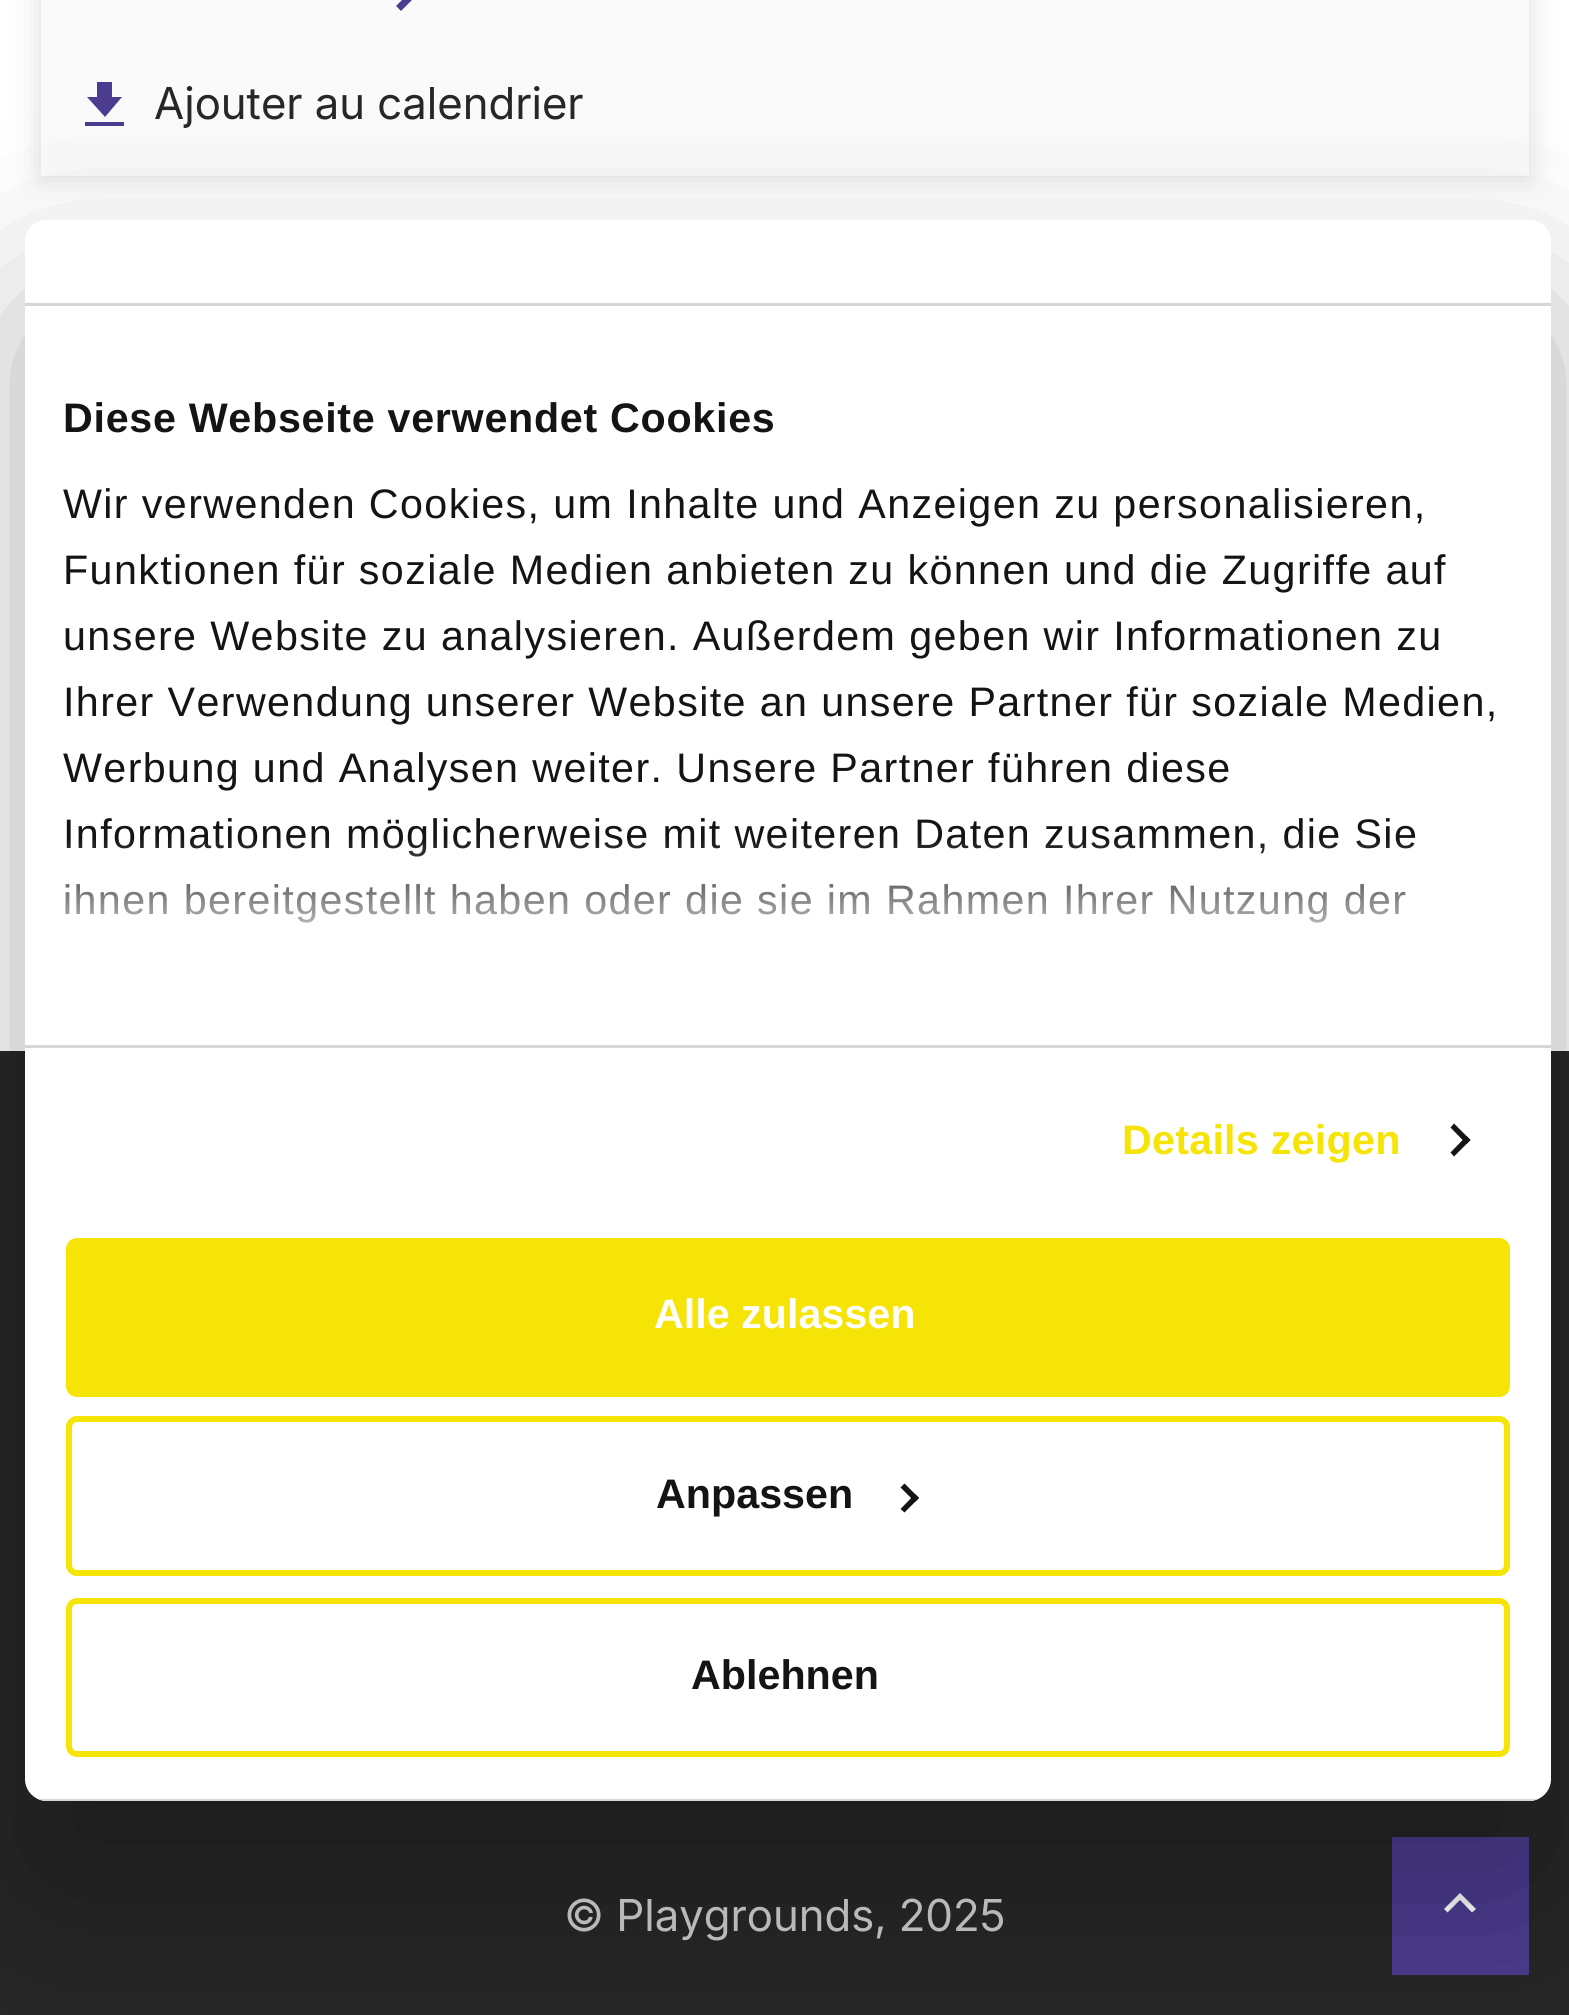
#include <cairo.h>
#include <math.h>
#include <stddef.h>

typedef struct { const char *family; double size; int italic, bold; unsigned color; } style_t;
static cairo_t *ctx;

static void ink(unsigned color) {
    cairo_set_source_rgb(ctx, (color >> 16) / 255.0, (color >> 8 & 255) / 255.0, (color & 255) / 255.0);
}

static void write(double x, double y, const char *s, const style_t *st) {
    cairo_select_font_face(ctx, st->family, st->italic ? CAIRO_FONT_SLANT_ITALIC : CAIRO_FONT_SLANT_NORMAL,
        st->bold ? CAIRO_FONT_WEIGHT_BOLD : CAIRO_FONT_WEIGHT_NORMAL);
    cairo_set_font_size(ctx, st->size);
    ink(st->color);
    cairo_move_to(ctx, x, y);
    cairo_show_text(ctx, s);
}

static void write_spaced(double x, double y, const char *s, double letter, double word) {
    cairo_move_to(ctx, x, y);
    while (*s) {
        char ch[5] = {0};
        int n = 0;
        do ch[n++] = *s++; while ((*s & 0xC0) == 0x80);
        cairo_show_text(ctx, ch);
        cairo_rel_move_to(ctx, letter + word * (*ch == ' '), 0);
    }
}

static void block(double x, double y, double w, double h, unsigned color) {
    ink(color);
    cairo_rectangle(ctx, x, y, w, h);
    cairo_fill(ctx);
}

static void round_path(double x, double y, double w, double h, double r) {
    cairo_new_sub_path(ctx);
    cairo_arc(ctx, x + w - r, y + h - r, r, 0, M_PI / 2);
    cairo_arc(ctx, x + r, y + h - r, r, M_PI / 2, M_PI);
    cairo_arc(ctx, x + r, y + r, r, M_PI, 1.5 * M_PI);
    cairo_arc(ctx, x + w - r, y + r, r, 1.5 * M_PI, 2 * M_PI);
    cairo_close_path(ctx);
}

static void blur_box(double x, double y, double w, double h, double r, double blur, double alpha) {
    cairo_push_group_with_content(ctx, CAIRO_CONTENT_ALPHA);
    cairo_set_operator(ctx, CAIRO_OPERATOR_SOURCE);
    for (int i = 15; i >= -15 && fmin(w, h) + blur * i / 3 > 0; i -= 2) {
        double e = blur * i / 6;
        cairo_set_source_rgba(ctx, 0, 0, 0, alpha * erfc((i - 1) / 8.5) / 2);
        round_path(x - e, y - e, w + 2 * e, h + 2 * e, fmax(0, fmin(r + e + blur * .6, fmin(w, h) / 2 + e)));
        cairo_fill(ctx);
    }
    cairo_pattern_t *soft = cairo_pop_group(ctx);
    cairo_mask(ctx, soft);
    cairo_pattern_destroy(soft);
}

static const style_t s1 = {"Inter", 44, 0, 0, 0x272727};
static const style_t s2 = {"Liberation Sans", 41.25, 0, 1, 0xffffff};
static const style_t s3 = {"Liberation Sans", 41.25, 0, 1, 0x141414};
static const style_t s4 = {"Inter", 44, 0, 0, 0xb9b9b9};

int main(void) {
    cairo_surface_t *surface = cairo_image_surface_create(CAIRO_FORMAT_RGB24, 1569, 2015);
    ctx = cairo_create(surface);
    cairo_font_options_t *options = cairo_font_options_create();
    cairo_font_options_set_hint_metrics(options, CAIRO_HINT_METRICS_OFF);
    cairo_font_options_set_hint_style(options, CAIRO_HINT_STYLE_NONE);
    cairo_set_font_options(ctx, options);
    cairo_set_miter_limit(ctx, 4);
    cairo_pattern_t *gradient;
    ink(0xffffff);
    cairo_paint(ctx);
    ink(0xb9b9b9);
    blur_box(41, -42, 1488, 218, 0, 14, 0.5);
    block(41, 0, 1488, 176, 0xfafafa);
    ink(0x4c3c90);
    cairo_new_path(ctx);
    cairo_move_to(ctx, 396, -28);
    cairo_line_to(ctx, 413, -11);
    cairo_line_to(ctx, 396, 6);
    cairo_line_to(ctx, 401, 11);
    cairo_line_to(ctx, 423, -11);
    cairo_line_to(ctx, 401, -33);
    cairo_close_path(ctx);
    cairo_fill(ctx);
    cairo_new_path(ctx);
    cairo_move_to(ctx, 112, 97);
    cairo_line_to(ctx, 122, 97);
    cairo_line_to(ctx, 105, 117);
    cairo_line_to(ctx, 87, 97);
    cairo_line_to(ctx, 97, 97);
    cairo_line_to(ctx, 97, 82);
    cairo_line_to(ctx, 112, 82);
    cairo_close_path(ctx);
    cairo_move_to(ctx, 124, 126);
    cairo_line_to(ctx, 124, 122);
    cairo_line_to(ctx, 85, 122);
    cairo_line_to(ctx, 85, 126);
    cairo_close_path(ctx);
    cairo_fill(ctx);
    write(154, 119, "Ajouter au calendrier", &s1);
    block(0, 1051, 1569, 964, 0x272727);
    block(1392, 1837, 137, 138, 0x4c3c90);
    ink(0xffffff);
    cairo_new_path(ctx);
    cairo_move_to(ctx, 1472, 1912.5);
    cairo_line_to(ctx, 1460, 1900);
    cairo_line_to(ctx, 1447.5, 1912.5);
    cairo_line_to(ctx, 1444, 1909);
    cairo_line_to(ctx, 1460, 1893);
    cairo_line_to(ctx, 1476, 1909);
    cairo_close_path(ctx);
    cairo_fill(ctx);
    cairo_save(ctx);
    cairo_set_fill_rule(ctx, CAIRO_FILL_RULE_EVEN_ODD);
    cairo_new_path(ctx);
    cairo_move_to(ctx, 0, 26);
    cairo_line_to(ctx, 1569, 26);
    cairo_line_to(ctx, 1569, 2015);
    cairo_line_to(ctx, 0, 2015);
    cairo_close_path(ctx);
    cairo_move_to(ctx, 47, 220);
    cairo_line_to(ctx, 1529, 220);
    cairo_curve_to(ctx, 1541, 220, 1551, 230, 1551, 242);
    cairo_line_to(ctx, 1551, 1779);
    cairo_curve_to(ctx, 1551, 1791, 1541, 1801, 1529, 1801);
    cairo_line_to(ctx, 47, 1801);
    cairo_curve_to(ctx, 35, 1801, 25, 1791, 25, 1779);
    cairo_line_to(ctx, 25, 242);
    cairo_curve_to(ctx, 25, 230, 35, 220, 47, 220);
    cairo_close_path(ctx);
    cairo_clip(ctx);
    ink(0x000000);
    blur_box(25, 308, 1526, 1581, 22, 93.5, 0.3);
    cairo_restore(ctx);
    round_path(25, 220, 1526, 1581, 22);
    cairo_fill(ctx);
    block(25, 303, 1526, 3, 0xd6d6d6);
    block(25, 1045, 1526, 3, 0xd6d6d6);
    cairo_select_font_face(ctx, "Liberation Sans", CAIRO_FONT_SLANT_NORMAL, CAIRO_FONT_WEIGHT_BOLD);
    cairo_set_font_size(ctx, 41.25);
    ink(0x141414);
    write_spaced(63, 432, "Diese Webseite verwendet Cookies", 0.7, 0);
    cairo_select_font_face(ctx, "Liberation Sans", CAIRO_FONT_SLANT_NORMAL, CAIRO_FONT_WEIGHT_NORMAL);
    write_spaced(63, 518, "Wir verwenden Cookies, um Inhalte und Anzeigen zu personalisieren,", 1.38, 0);
    write_spaced(63, 584, "Funktionen für soziale Medien anbieten zu können und die Zugriffe auf", 1.38, 0);
    write_spaced(63, 650, "unsere Website zu analysieren. Außerdem geben wir Informationen zu", 1.38, 0);
    write_spaced(63, 716, "Ihrer Verwendung unserer Website an unsere Partner für soziale Medien,", 1.38, 0);
    write_spaced(63, 782, "Werbung und Analysen weiter. Unsere Partner führen diese", 1.38, 0);
    write_spaced(63, 848, "Informationen möglicherweise mit weiteren Daten zusammen, die Sie", 1.38, 0);
    write_spaced(63, 914, "ihnen bereitgestellt haben oder die sie im Rahmen Ihrer Nutzung der", 1.38, 0);
    gradient = cairo_pattern_create_linear(769, 1044, 769, 837);
    cairo_pattern_add_color_stop_rgba(gradient, 0, 1, 1, 1, 1);
    cairo_pattern_add_color_stop_rgba(gradient, 0.5, 1, 1, 1, 0.8);
    cairo_pattern_add_color_stop_rgba(gradient, 1, 1, 1, 1, 0);
    cairo_set_source(ctx, gradient);
    cairo_pattern_destroy(gradient);
    cairo_rectangle(ctx, 66, 840, 1348, 83);
    cairo_fill(ctx);
    cairo_select_font_face(ctx, "Liberation Sans", CAIRO_FONT_SLANT_NORMAL, CAIRO_FONT_WEIGHT_BOLD);
    ink(0xf5e405);
    write_spaced(1122, 1154, "Details zeigen", 0.25, 0);
    ink(0x141414);
    cairo_new_path(ctx);
    cairo_move_to(ctx, 1454, 1123.5);
    cairo_line_to(ctx, 1470.5, 1140);
    cairo_line_to(ctx, 1466.5, 1144);
    cairo_line_to(ctx, 1450.5, 1127.5);
    cairo_close_path(ctx);
    cairo_fill(ctx);
    cairo_new_path(ctx);
    cairo_move_to(ctx, 1466.5, 1136);
    cairo_line_to(ctx, 1470.5, 1140);
    cairo_line_to(ctx, 1454, 1156.5);
    cairo_line_to(ctx, 1450.5, 1152.5);
    cairo_close_path(ctx);
    cairo_fill(ctx);
    cairo_save(ctx);
    round_path(25, 220, 1526, 1581, 22);
    cairo_clip(ctx);
    block(38, 1799, 1500, 2, 0xd6d6d6);
    cairo_restore(ctx);
    ink(0xf5e405);
    round_path(69, 1241, 1438, 153, 8);
    cairo_fill_preserve(ctx);
    cairo_set_line_width(ctx, 6);
    cairo_stroke(ctx);
    write(654, 1328, "Alle zulassen", &s2);
    round_path(69, 1419, 1438, 154, 8);
    ink(0xf5e405);
    cairo_stroke(ctx);
    write(656, 1508, "Anpassen", &s3);
    cairo_new_path(ctx);
    cairo_move_to(ctx, 904.5, 1483.5);
    cairo_line_to(ctx, 919, 1498);
    cairo_line_to(ctx, 915, 1502);
    cairo_line_to(ctx, 900.5, 1487.5);
    cairo_close_path(ctx);
    cairo_fill(ctx);
    cairo_new_path(ctx);
    cairo_move_to(ctx, 915, 1494);
    cairo_line_to(ctx, 919, 1498);
    cairo_line_to(ctx, 904.5, 1512.5);
    cairo_line_to(ctx, 900.5, 1509);
    cairo_close_path(ctx);
    cairo_fill(ctx);
    round_path(69, 1601, 1438, 153, 8);
    ink(0xf5e405);
    cairo_stroke(ctx);
    write(691, 1689, "Ablehnen", &s3);
    write(564, 1931, "© Playgrounds, 2025", &s4);
    cairo_surface_write_to_png(surface, "screenshot.png");
    cairo_font_options_destroy(options);
    cairo_destroy(ctx);
    cairo_surface_destroy(surface);
    return 0;
}
